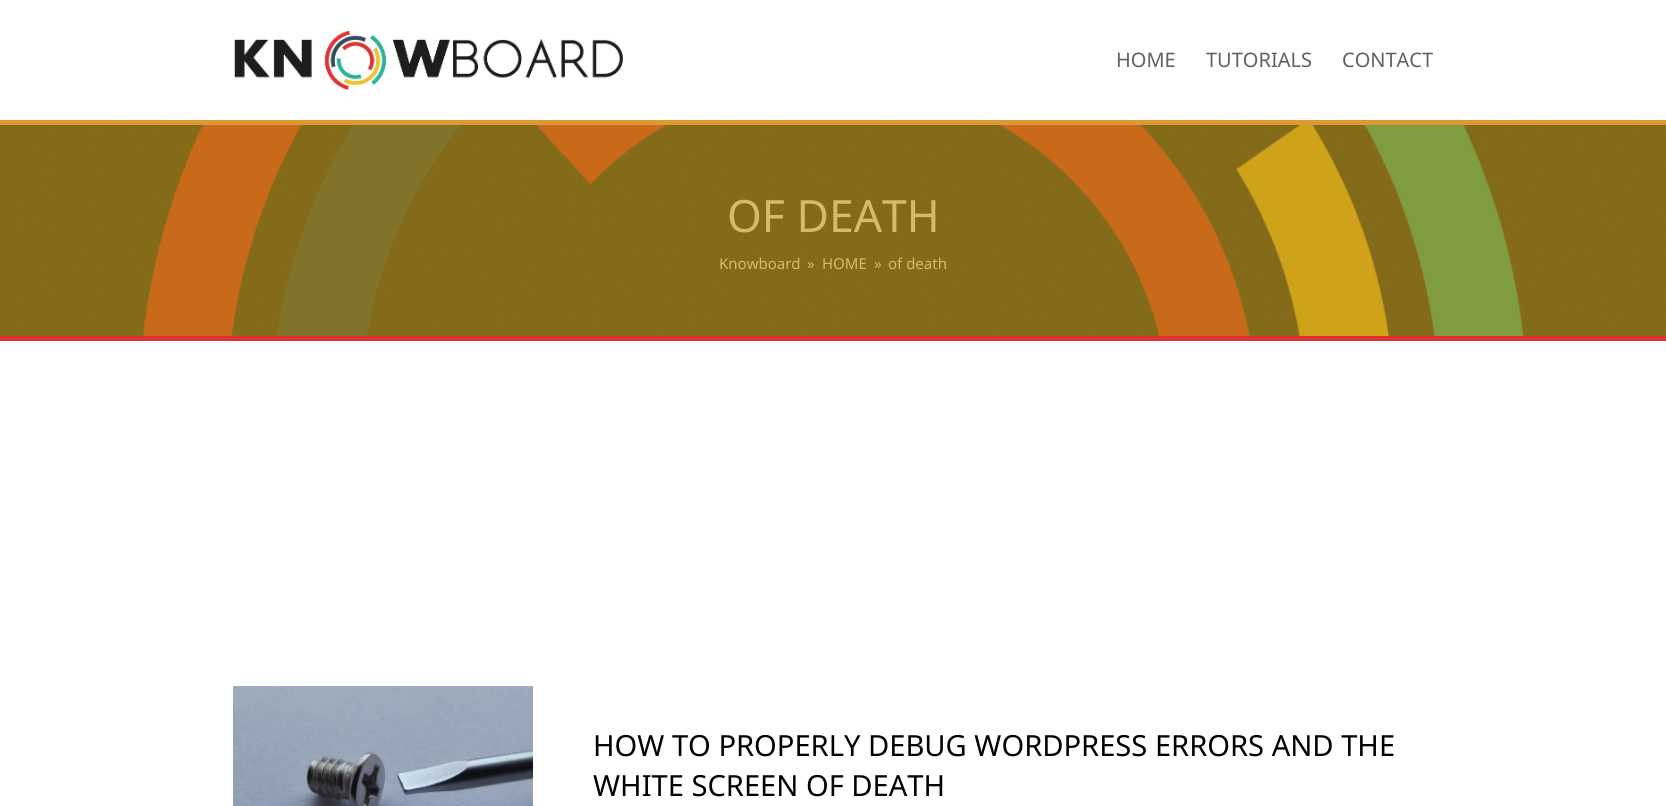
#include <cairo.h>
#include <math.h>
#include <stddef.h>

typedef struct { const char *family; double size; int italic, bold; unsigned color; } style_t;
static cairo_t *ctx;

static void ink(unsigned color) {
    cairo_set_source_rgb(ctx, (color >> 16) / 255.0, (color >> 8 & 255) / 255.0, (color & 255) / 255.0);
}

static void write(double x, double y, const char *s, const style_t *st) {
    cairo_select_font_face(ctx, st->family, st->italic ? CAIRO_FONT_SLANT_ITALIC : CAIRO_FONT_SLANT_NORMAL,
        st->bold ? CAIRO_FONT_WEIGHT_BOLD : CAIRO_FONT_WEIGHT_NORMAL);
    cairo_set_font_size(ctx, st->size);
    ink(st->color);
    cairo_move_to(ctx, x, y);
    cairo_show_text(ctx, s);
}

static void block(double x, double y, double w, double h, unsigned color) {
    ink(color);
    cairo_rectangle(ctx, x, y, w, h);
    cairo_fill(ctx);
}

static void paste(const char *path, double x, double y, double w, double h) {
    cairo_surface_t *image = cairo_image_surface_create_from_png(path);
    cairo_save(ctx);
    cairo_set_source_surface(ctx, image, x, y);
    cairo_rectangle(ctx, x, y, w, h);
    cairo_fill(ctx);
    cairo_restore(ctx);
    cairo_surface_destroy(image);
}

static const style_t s1 = {"Noto Sans", 20, 0, 0, 0x616161};
static const style_t s2 = {"Noto Sans", 44.5, 0, 0, 0xd4bb6a};
static const style_t s3 = {"Noto Sans", 15, 0, 0, 0xd4bb6a};
static const style_t s4 = {"Noto Sans", 29.1, 0, 0, 0x000000};

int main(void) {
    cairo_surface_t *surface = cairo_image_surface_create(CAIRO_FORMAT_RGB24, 1666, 806);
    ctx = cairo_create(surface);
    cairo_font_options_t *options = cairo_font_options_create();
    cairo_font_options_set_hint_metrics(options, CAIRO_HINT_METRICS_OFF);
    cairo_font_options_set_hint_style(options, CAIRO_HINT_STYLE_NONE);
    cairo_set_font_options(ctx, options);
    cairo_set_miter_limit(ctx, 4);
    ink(0xffffff);
    cairo_paint(ctx);
    paste("pic1.png", 234, 30, 389, 60);
    write(1116, 67, "HOME", &s1);
    write(1206, 67, "TUTORIALS", &s1);
    write(1342, 67, "CONTACT", &s1);
    paste("pic2.png", 0, 125, 1666, 211);
    block(0, 120, 1666, 5, 0xdd9933);
    block(0, 336, 1666, 5, 0xdd3333);
    write(727, 232, "OF DEATH", &s2);
    write(719, 269, "Knowboard", &s3);
    write(807, 269, "»", &s3);
    write(822, 269, "HOME", &s3);
    write(874, 269, "»", &s3);
    write(888, 269, "of death", &s3);
    paste("pic3.png", 233, 686, 300, 120);
    write(593, 756, "HOW TO PROPERLY DEBUG WORDPRESS ERRORS AND THE", &s4);
    write(593, 796, "WHITE SCREEN OF DEATH", &s4);
    cairo_surface_write_to_png(surface, "screenshot.png");
    cairo_font_options_destroy(options);
    cairo_destroy(ctx);
    cairo_surface_destroy(surface);
    return 0;
}
